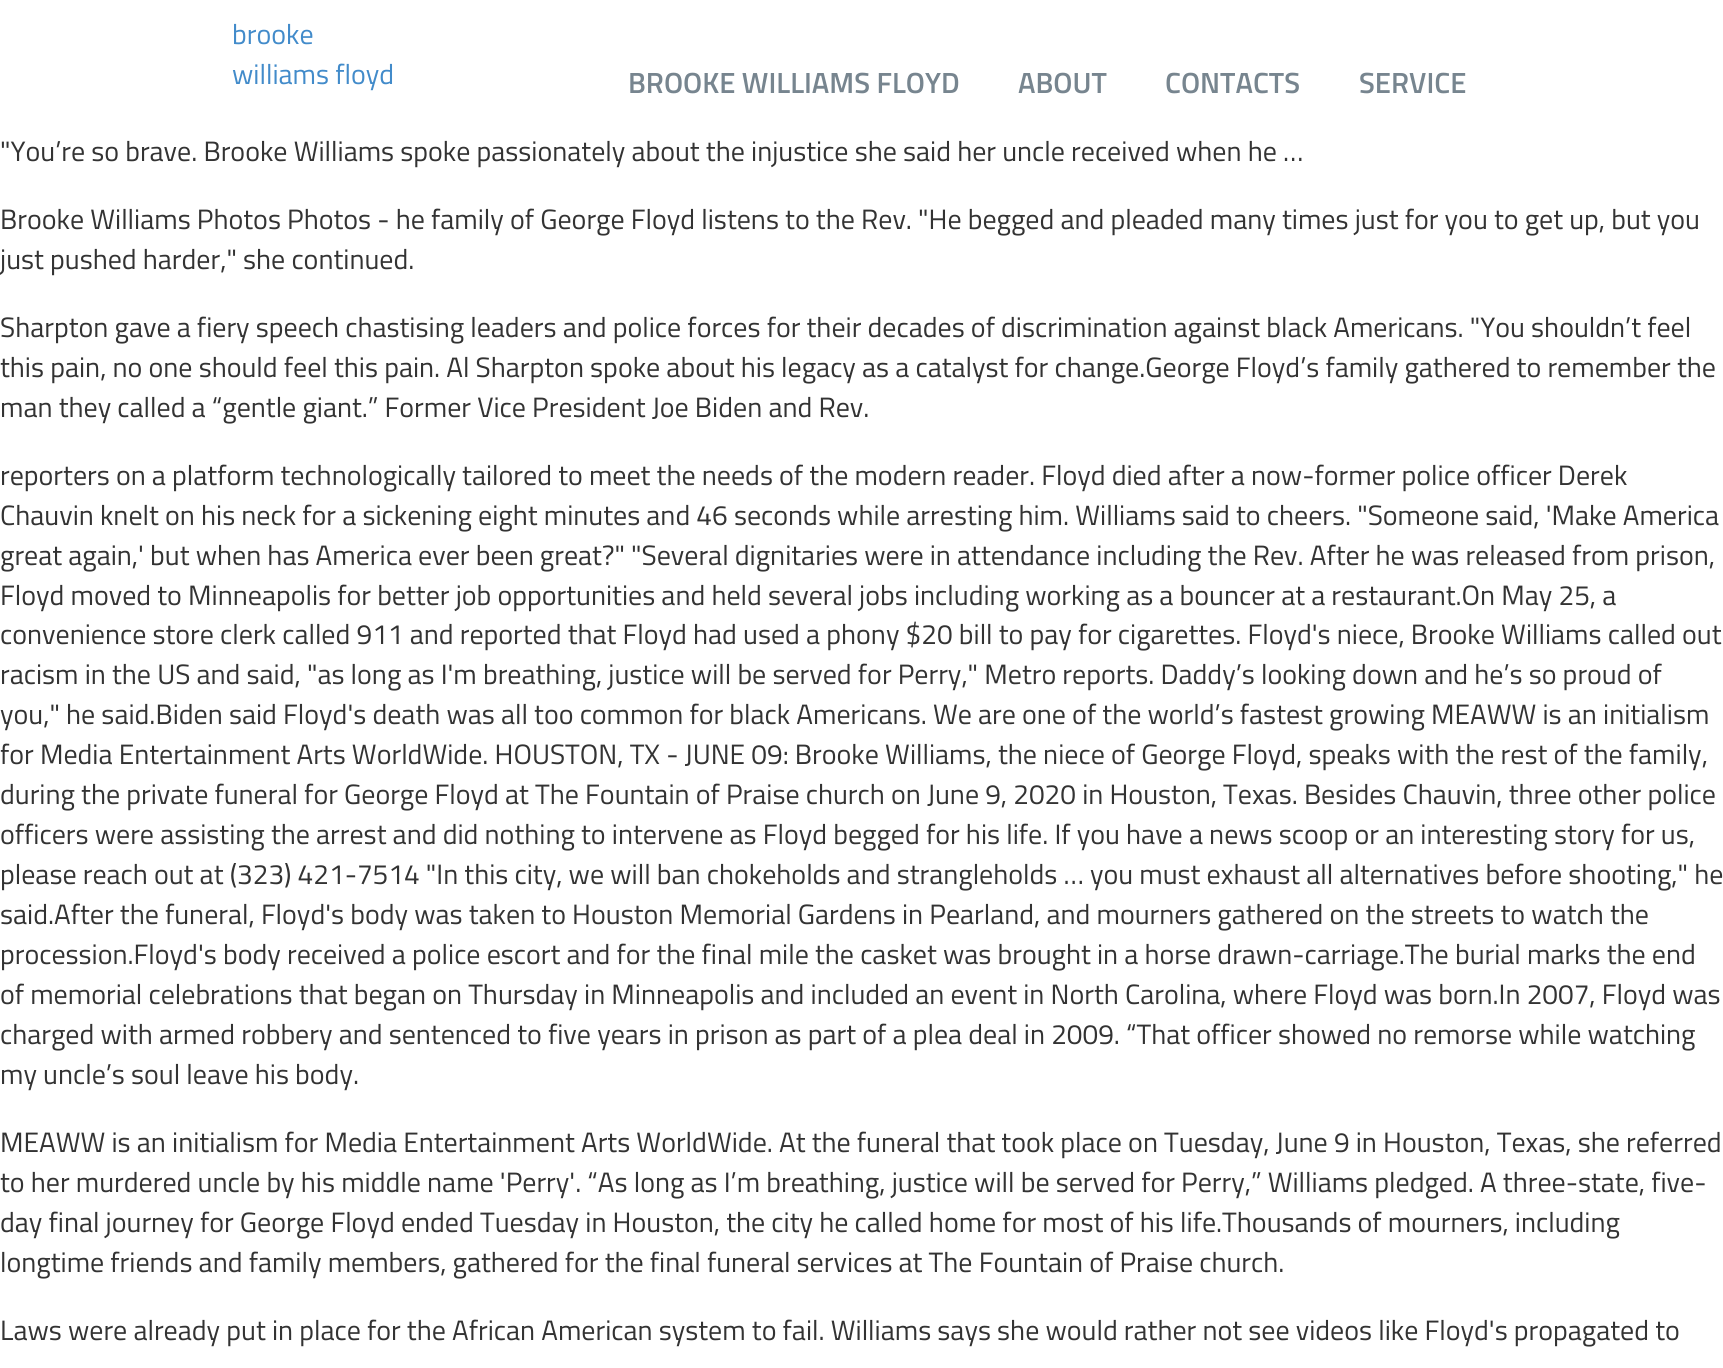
#include <cairo.h>
#include <math.h>
#include <stddef.h>

typedef struct { const char *family; double size; int italic, bold; unsigned color; } style_t;
static cairo_t *ctx;

static void ink(unsigned color) {
    cairo_set_source_rgb(ctx, (color >> 16) / 255.0, (color >> 8 & 255) / 255.0, (color & 255) / 255.0);
}

static void write(double x, double y, const char *s, const style_t *st) {
    cairo_select_font_face(ctx, st->family, st->italic ? CAIRO_FONT_SLANT_ITALIC : CAIRO_FONT_SLANT_NORMAL,
        st->bold ? CAIRO_FONT_WEIGHT_BOLD : CAIRO_FONT_WEIGHT_NORMAL);
    cairo_set_font_size(ctx, st->size);
    ink(st->color);
    cairo_move_to(ctx, x, y);
    cairo_show_text(ctx, s);
}

static const style_t s1 = {"Titillium Web", 28, 0, 0, 0x428bca};
static const style_t s2 = {"Titillium Web SemiBold", 29.2, 0, 0, 0x77858f};
static const style_t s3 = {"Titillium Web", 28, 0, 0, 0x333333};

int main(void) {
    cairo_surface_t *surface = cairo_image_surface_create(CAIRO_FORMAT_RGB24, 1723, 1368);
    ctx = cairo_create(surface);
    cairo_font_options_t *options = cairo_font_options_create();
    cairo_font_options_set_hint_metrics(options, CAIRO_HINT_METRICS_OFF);
    cairo_font_options_set_hint_style(options, CAIRO_HINT_STYLE_NONE);
    cairo_set_font_options(ctx, options);
    cairo_set_miter_limit(ctx, 4);
    ink(0xffffff);
    cairo_paint(ctx);
    write(232, 44, "brooke", &s1);
    write(232, 84, "williams floyd", &s1);
    write(628, 93, "BROOKE WILLIAMS FLOYD", &s2);
    write(1018, 93, "ABOUT", &s2);
    write(1165, 93, "CONTACTS", &s2);
    write(1359, 93, "SERVICE", &s2);
    write(0, 161, "\"You’re so brave. Brooke Williams spoke passionately about the injustice she said her uncle received when he …", &s3);
    write(0, 229, "Brooke Williams Photos Photos - he family of George Floyd listens to the Rev. \"He begged and pleaded many times just for you to get up, but you", &s3);
    write(0, 269, "just pushed harder,\" she continued.", &s3);
    write(0, 337, "Sharpton gave a fiery speech chastising leaders and police forces for their decades of discrimination against black Americans. \"You shouldn’t feel", &s3);
    write(0, 377, "this pain, no one should feel this pain. Al Sharpton spoke about his legacy as a catalyst for change.George Floyd’s family gathered to remember the", &s3);
    write(0, 417, "man they called a “gentle giant.” Former Vice President Joe Biden and Rev.", &s3);
    write(0, 485, "reporters on a platform technologically tailored to meet the needs of the modern reader. Floyd died after a now-former police officer Derek", &s3);
    write(0, 525, "Chauvin knelt on his neck for a sickening eight minutes and 46 seconds while arresting him. Williams said to cheers. \"Someone said, 'Make America", &s3);
    write(0, 565, "great again,' but when has America ever been great?\" \"Several dignitaries were in attendance including the Rev. After he was released from prison,", &s3);
    write(0, 605, "Floyd moved to Minneapolis for better job opportunities and held several jobs including working as a bouncer at a restaurant.On May 25, a", &s3);
    write(0, 644, "convenience store clerk called 911 and reported that Floyd had used a phony $20 bill to pay for cigarettes. Floyd's niece, Brooke Williams called out", &s3);
    write(0, 684, "racism in the US and said, \"as long as I'm breathing, justice will be served for Perry,\" Metro reports. Daddy’s looking down and he’s so proud of", &s3);
    write(0, 724, "you,\" he said.Biden said Floyd's death was all too common for black Americans. We are one of the world’s fastest growing MEAWW is an initialism", &s3);
    write(0, 764, "for Media Entertainment Arts WorldWide. HOUSTON, TX - JUNE 09: Brooke Williams, the niece of George Floyd, speaks with the rest of the family,", &s3);
    write(0, 804, "during the private funeral for George Floyd at The Fountain of Praise church on June 9, 2020 in Houston, Texas. Besides Chauvin, three other police", &s3);
    write(0, 844, "officers were assisting the arrest and did nothing to intervene as Floyd begged for his life. If you have a news scoop or an interesting story for us,", &s3);
    write(0, 884, "please reach out at (323) 421-7514 \"In this city, we will ban chokeholds and strangleholds … you must exhaust all alternatives before shooting,\" he", &s3);
    write(0, 924, "said.After the funeral, Floyd's body was taken to Houston Memorial Gardens in Pearland, and mourners gathered on the streets to watch the", &s3);
    write(0, 964, "procession.Floyd's body received a police escort and for the final mile the casket was brought in a horse drawn-carriage.The burial marks the end", &s3);
    write(0, 1004, "of memorial celebrations that began on Thursday in Minneapolis and included an event in North Carolina, where Floyd was born.In 2007, Floyd was", &s3);
    write(0, 1044, "charged with armed robbery and sentenced to five years in prison as part of a plea deal in 2009. “That officer showed no remorse while watching", &s3);
    write(0, 1084, "my uncle’s soul leave his body.", &s3);
    write(0, 1152, "MEAWW is an initialism for Media Entertainment Arts WorldWide. At the funeral that took place on Tuesday, June 9 in Houston, Texas, she referred", &s3);
    write(0, 1192, "to her murdered uncle by his middle name 'Perry'. “As long as I’m breathing, justice will be served for Perry,” Williams pledged. A three-state, five-", &s3);
    write(0, 1232, "day final journey for George Floyd ended Tuesday in Houston, the city he called home for most of his life.Thousands of mourners, including", &s3);
    write(0, 1272, "longtime friends and family members, gathered for the final funeral services at The Fountain of Praise church.", &s3);
    write(0, 1340, "Laws were already put in place for the African American system to fail. Williams says she would rather not see videos like Floyd's propagated to", &s3);
    cairo_surface_write_to_png(surface, "screenshot.png");
    cairo_font_options_destroy(options);
    cairo_destroy(ctx);
    cairo_surface_destroy(surface);
    return 0;
}
